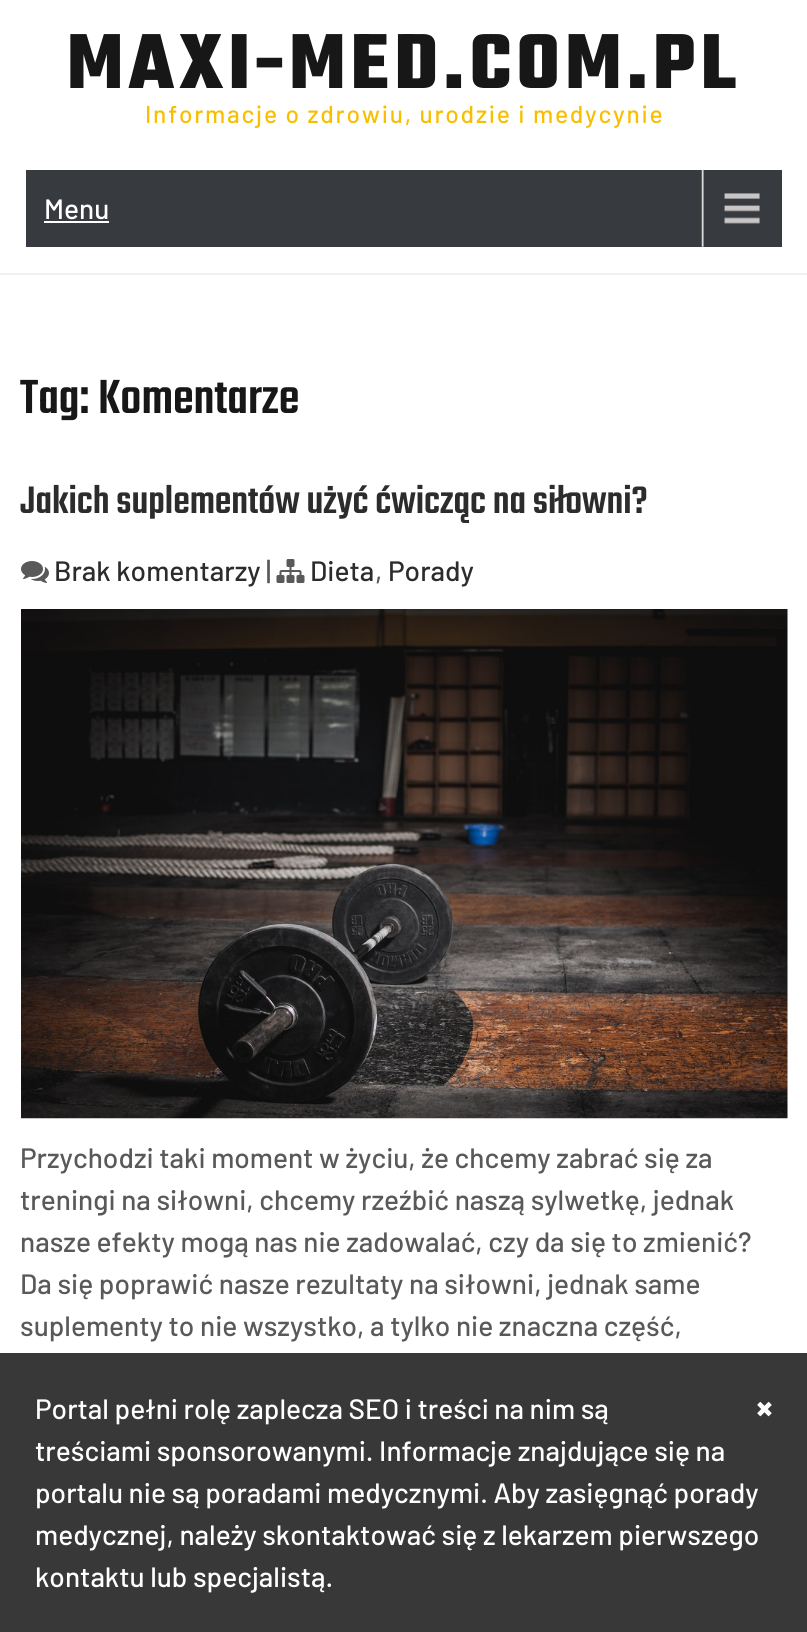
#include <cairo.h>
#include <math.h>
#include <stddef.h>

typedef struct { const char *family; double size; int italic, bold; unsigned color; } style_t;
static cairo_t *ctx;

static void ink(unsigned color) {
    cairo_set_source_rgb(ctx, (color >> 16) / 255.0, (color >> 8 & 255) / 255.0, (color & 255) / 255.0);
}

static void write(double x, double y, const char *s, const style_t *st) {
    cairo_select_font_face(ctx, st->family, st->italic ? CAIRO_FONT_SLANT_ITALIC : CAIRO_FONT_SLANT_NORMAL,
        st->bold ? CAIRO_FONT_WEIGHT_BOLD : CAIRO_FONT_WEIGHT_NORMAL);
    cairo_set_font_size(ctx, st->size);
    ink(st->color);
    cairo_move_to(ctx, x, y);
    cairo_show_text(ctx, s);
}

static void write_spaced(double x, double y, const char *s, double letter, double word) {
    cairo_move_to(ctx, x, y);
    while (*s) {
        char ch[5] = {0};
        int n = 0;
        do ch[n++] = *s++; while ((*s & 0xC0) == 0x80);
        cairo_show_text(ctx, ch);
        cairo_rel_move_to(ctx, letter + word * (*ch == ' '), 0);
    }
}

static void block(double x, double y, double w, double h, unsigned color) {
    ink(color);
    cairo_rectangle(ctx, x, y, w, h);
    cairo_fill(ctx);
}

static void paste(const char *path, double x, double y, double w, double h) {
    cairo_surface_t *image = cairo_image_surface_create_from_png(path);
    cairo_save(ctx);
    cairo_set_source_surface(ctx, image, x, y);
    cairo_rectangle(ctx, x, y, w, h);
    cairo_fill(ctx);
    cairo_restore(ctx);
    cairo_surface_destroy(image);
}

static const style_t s1 = {"Barlow Medium", 28, 0, 0, 0xffffff};
static const style_t s2 = {"Teko Medium", 52.5, 0, 0, 0x171717};
static const style_t s3 = {"Teko Medium", 42, 0, 0, 0x2c2c2c};
static const style_t s4 = {"Barlow Medium", 28, 0, 0, 0x2c2c2c};
static const style_t s5 = {"Barlow Medium", 28, 0, 0, 0x595959};
static const style_t s6 = {"Barlow", 38, 0, 1, 0xffffff};

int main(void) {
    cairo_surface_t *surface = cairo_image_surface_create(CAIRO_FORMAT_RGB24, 807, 1632);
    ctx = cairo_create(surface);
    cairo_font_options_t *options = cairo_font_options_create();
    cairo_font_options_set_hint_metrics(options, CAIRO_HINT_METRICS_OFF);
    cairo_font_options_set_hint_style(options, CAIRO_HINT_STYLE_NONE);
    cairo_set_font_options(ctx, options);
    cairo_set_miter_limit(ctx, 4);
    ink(0xffffff);
    cairo_paint(ctx);
    block(0, 273, 807, 2, 0xf1f1f1);
    cairo_select_font_face(ctx, "Teko", CAIRO_FONT_SLANT_NORMAL, CAIRO_FONT_WEIGHT_BOLD);
    cairo_set_font_size(ctx, 84);
    ink(0x171717);
    write_spaced(67, 88, "MAXI-MED.COM.PL", 5.25, 0);
    cairo_select_font_face(ctx, "Barlow Medium", CAIRO_FONT_SLANT_NORMAL, CAIRO_FONT_WEIGHT_NORMAL);
    cairo_set_font_size(ctx, 24.5);
    ink(0xf8bf02);
    write_spaced(145, 123, "Informacje o zdrowiu, urodzie i medycynie", 1.75, 0);
    block(26, 170, 756, 77, 0x373a3f);
    paste("pic1.png", 701, 169, 59, 78);
    write(44, 219, "Menu", &s1);
    block(44, 221, 65, 2, 0xffffff);
    write(20, 413, "Tag: Komentarze", &s2);
    write(20, 513, "Jakich suplementów użyć ćwicząc na siłowni?", &s3);
    paste("pic2.png", 21, 561, 28, 22);
    write(54, 581, "Brak komentarzy", &s4);
    write(266, 581, "|", &s5);
    paste("pic3.png", 276, 559, 29, 24);
    write(310, 581, "Dieta", &s4);
    write(375, 581, ",", &s5);
    write(388, 581, "Porady", &s4);
    paste("pic4.png", 21, 609, 767, 510);
    write(20, 1168, "Przychodzi taki moment w życiu, że chcemy zabrać się za", &s5);
    write(20, 1210, "treningi na siłowni, chcemy rzeźbić naszą sylwetkę, jednak", &s5);
    write(20, 1252, "nasze efekty mogą nas nie zadowalać, czy da się to zmienić?", &s5);
    write(20, 1294, "Da się poprawić nasze rezultaty na siłowni, jednak same", &s5);
    write(20, 1336, "suplementy to nie wszystko, a tylko nie znaczna część,", &s5);
    block(0, 1353, 807, 279, 0x383838);
    write(35, 1419, "Portal pełni rolę zaplecza SEO i treści na nim są", &s1);
    write(756, 1421, "×", &s6);
    write(35, 1461, "treściami sponsorowanymi. Informacje znajdujące się na", &s1);
    write(35, 1503, "portalu nie są poradami medycznymi. Aby zasięgnąć porady", &s1);
    write(35, 1545, "medycznej, należy skontaktować się z lekarzem pierwszego", &s1);
    write(35, 1587, "kontaktu lub specjalistą.", &s1);
    cairo_surface_write_to_png(surface, "screenshot.png");
    cairo_font_options_destroy(options);
    cairo_destroy(ctx);
    cairo_surface_destroy(surface);
    return 0;
}
